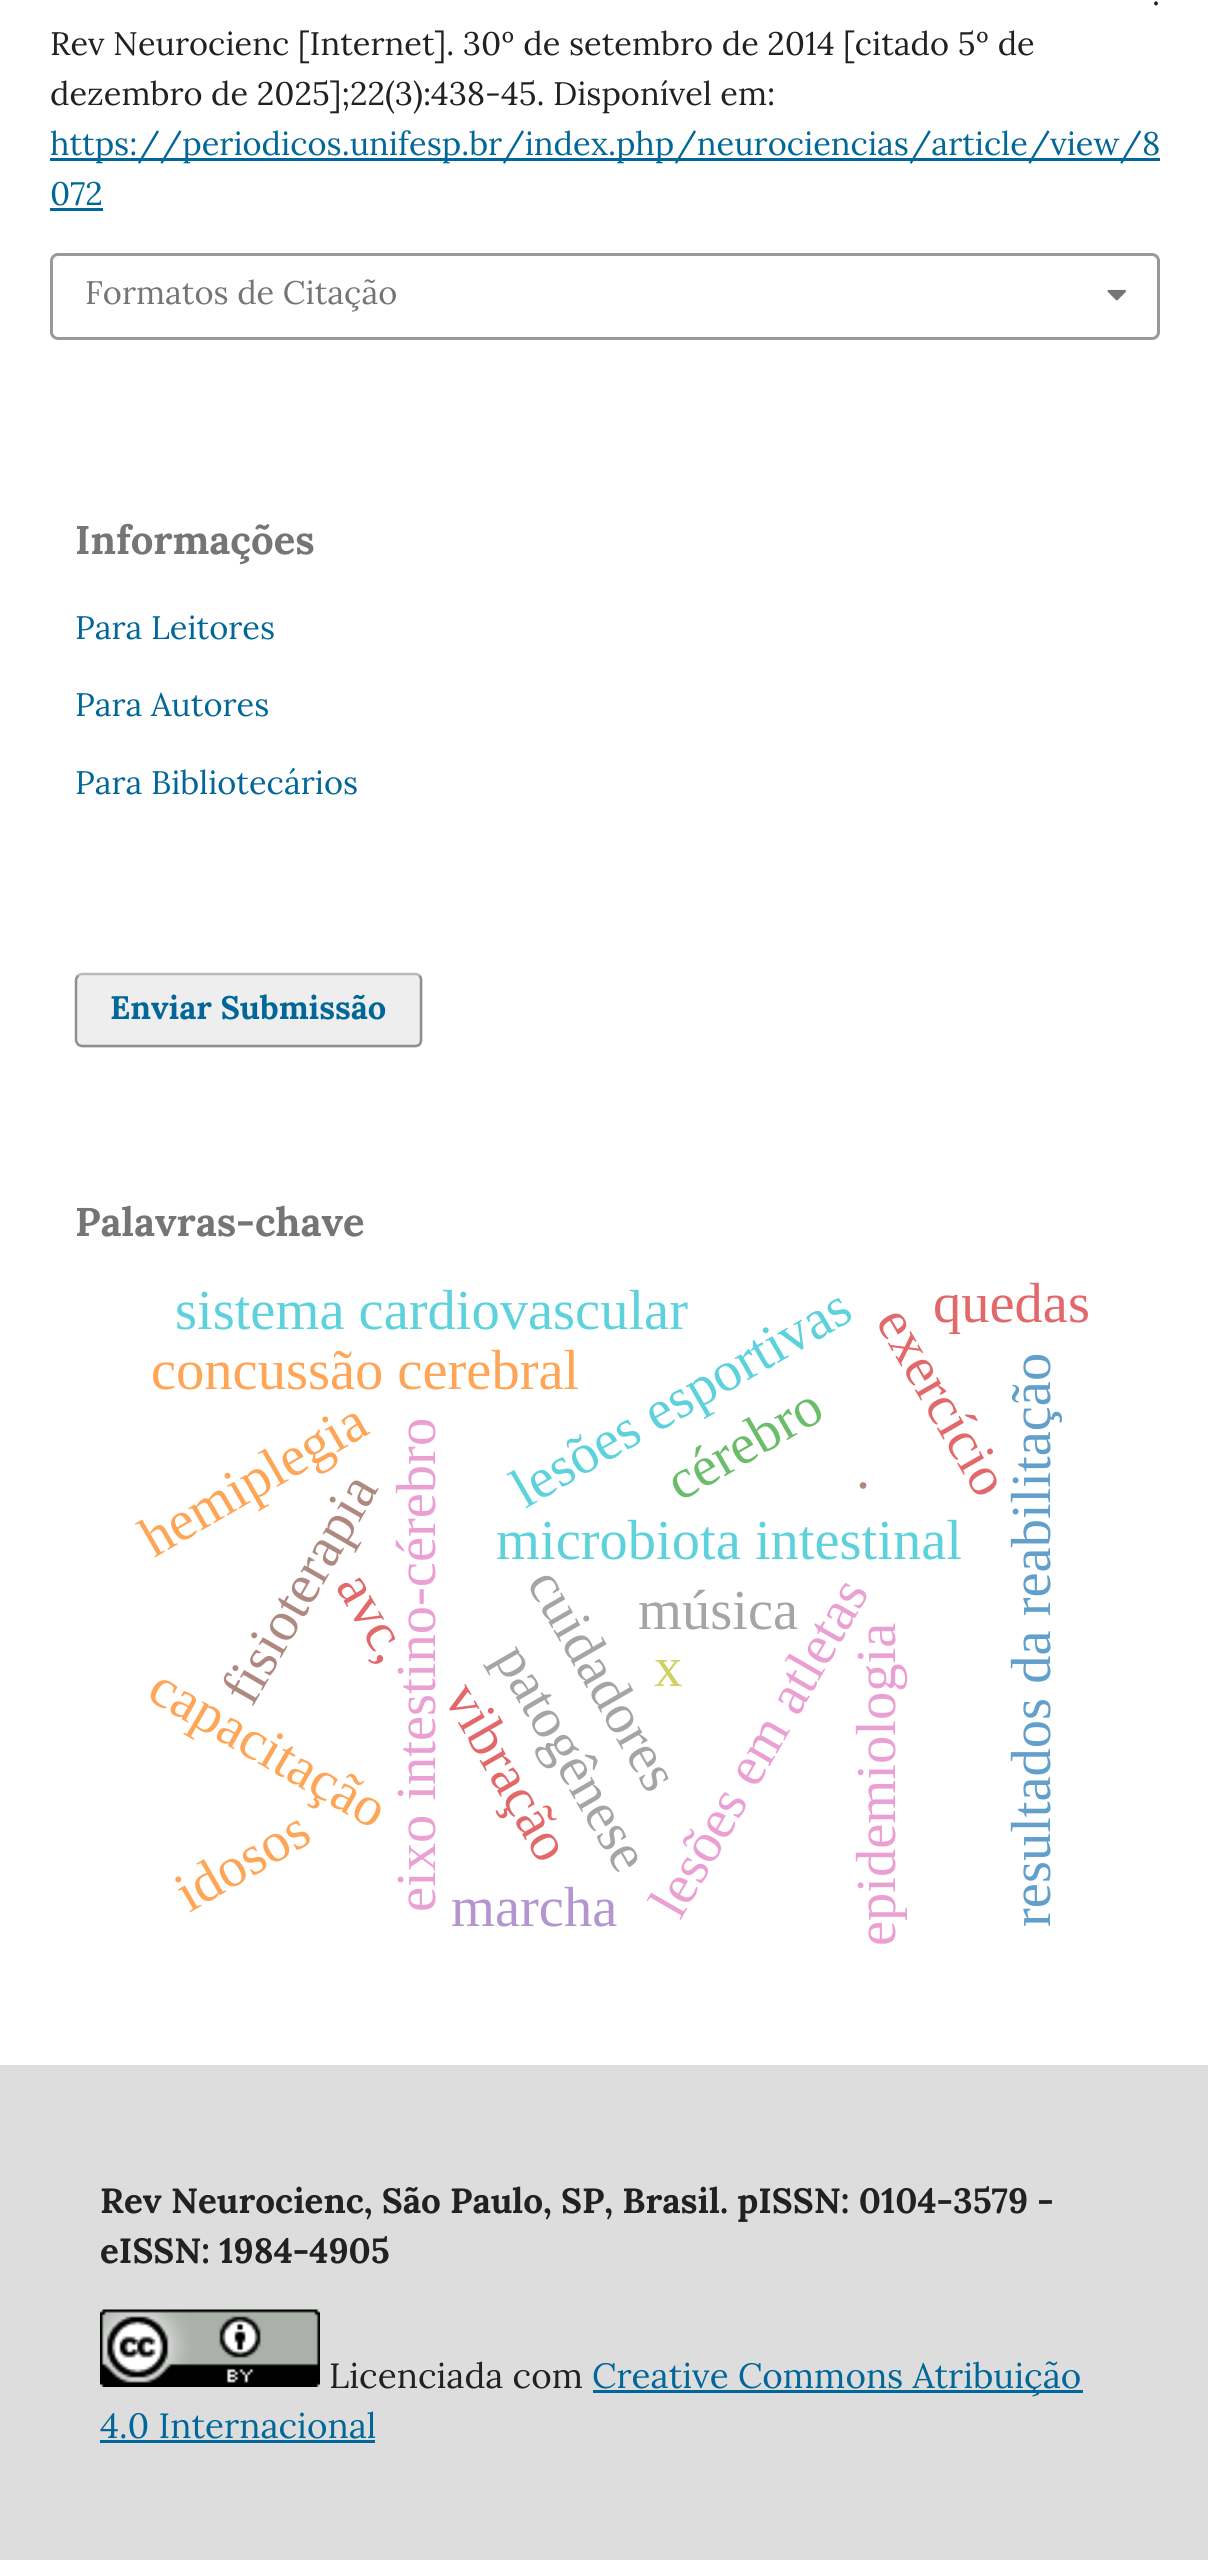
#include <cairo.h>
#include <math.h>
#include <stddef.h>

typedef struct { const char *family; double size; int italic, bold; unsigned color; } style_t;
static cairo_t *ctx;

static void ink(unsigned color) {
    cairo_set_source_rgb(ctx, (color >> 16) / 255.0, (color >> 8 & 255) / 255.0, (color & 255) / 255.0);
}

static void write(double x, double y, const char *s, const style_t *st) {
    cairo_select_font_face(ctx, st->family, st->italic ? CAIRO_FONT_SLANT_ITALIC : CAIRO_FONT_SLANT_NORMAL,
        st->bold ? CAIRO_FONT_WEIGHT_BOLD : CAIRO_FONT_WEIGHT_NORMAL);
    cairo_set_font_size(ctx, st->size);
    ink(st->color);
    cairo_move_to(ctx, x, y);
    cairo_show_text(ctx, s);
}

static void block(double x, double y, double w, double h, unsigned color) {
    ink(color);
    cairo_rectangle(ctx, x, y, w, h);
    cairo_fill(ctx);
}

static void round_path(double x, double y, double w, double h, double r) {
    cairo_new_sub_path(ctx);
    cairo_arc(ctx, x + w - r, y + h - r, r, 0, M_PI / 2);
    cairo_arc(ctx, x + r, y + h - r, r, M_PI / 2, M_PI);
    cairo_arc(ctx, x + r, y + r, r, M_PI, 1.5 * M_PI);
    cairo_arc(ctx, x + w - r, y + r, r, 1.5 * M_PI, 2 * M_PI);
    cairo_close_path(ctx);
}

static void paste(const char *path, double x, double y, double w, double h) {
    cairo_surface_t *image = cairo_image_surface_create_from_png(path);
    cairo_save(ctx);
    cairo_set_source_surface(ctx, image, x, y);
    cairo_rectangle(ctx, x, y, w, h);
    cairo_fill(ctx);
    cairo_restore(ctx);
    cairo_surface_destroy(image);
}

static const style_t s1 = {"Lora", 32.55, 0, 0, 0x212121};
static const style_t s2 = {"Lora", 32.55, 0, 0, 0x006798};
static const style_t s3 = {"Lora", 32.55, 0, 0, 0x757575};
static const style_t s4 = {"Lora", 40, 0, 1, 0x757575};
static const style_t s5 = {"Lora", 32.55, 0, 1, 0x006798};
static const style_t s6 = {"Liberation Serif", 56.5, 0, 0, 0xffa556};
static const style_t s7 = {"Liberation Serif", 56.5, 0, 0, 0x5dd2dd};
static const style_t s8 = {"Liberation Serif", 56.5, 0, 0, 0xe26869};
static const style_t s9 = {"Liberation Serif", 56.5, 0, 0, 0x62a0cb};
static const style_t s10 = {"Liberation Serif", 56.5, 0, 0, 0xaf8981};
static const style_t s11 = {"Liberation Serif", 56.5, 0, 0, 0xeba0d4};
static const style_t s12 = {"Liberation Serif", 56.5, 0, 0, 0x6bbd6b};
static const style_t s13 = {"Liberation Serif", 56.5, 0, 0, 0xa5a5a5};
static const style_t s14 = {"Liberation Serif", 56.5, 0, 0, 0xd0d164};
static const style_t s15 = {"Liberation Serif", 56.5, 0, 0, 0xb495d1};
static const style_t s16 = {"Lora", 35, 0, 1, 0x212121};
static const style_t s17 = {"Lora", 35, 0, 0, 0x212121};
static const style_t s18 = {"Lora", 35, 0, 0, 0x006798};

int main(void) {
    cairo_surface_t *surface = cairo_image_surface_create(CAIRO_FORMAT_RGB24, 1208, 2560);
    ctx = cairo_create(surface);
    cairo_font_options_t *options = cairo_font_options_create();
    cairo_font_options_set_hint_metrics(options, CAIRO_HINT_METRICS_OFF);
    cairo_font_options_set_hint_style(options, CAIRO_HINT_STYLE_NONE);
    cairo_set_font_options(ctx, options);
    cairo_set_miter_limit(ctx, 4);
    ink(0xffffff);
    cairo_paint(ctx);
    write(1152, 5, ".", &s1);
    write(50, 55, "Rev Neurocienc [Internet]. 30º de setembro de 2014 [citado 5º de", &s1);
    write(50, 105, "dezembro de 2025];22(3):438-45. Disponível em:", &s1);
    block(50, 158, 1110, 3, 0x006798);
    write(50, 155, "https://periodicos.unifesp.br/index.php/neurociencias/article/view/8", &s2);
    write(50, 205, "072", &s2);
    block(50, 208, 53, 3, 0x006798);
    round_path(51.5, 254.5, 1107, 84, 6.5);
    ink(0x999999);
    cairo_set_line_width(ctx, 3);
    cairo_stroke(ctx);
    write(85, 304, "Formatos de Citação", &s3);
    paste("pic1.png", 1107, 289, 19, 12);
    write(75, 554, "Informações", &s4);
    write(75, 639, "Para Leitores", &s2);
    write(75, 716, "Para Autores", &s2);
    write(75, 794, "Para Bibliotecários", &s2);
    ink(0xeeeeee);
    round_path(75, 973, 348, 75, 8);
    cairo_fill(ctx);
    cairo_new_path(ctx);
    cairo_move_to(ctx, 78, 975.5);
    cairo_curve_to(ctx, 79.5, 974.5, 81, 974, 82.5, 974);
    cairo_line_to(ctx, 415, 974);
    cairo_curve_to(ctx, 416.5, 974, 418, 974.5, 419.5, 975.5);
    ink(0xbbbbbb);
    cairo_set_line_width(ctx, 2.5);
    cairo_stroke(ctx);
    cairo_new_path(ctx);
    cairo_move_to(ctx, 419.5, 975.5);
    cairo_curve_to(ctx, 420.5, 977, 421, 978.5, 421, 980);
    cairo_line_to(ctx, 421, 1040);
    cairo_curve_to(ctx, 421, 1041.5, 420.5, 1043, 419.5, 1044.5);
    cairo_curve_to(ctx, 418, 1045.5, 416.5, 1046, 415, 1046);
    cairo_line_to(ctx, 82.5, 1046);
    cairo_curve_to(ctx, 81, 1046, 79.5, 1045.5, 78, 1044.5);
    cairo_curve_to(ctx, 77, 1043, 76, 1041.5, 76, 1040);
    cairo_line_to(ctx, 76, 980);
    cairo_curve_to(ctx, 76, 978.5, 77, 977, 78, 975.5);
    cairo_set_source_rgba(ctx, 0, 0, 0, 0.4);
    cairo_stroke(ctx);
    write(110, 1019, "Enviar Submissão", &s5);
    write(75, 1236, "Palavras-chave", &s4);
    write(151, 1389, "concussão cerebral", &s6);
    cairo_save(ctx);
    cairo_translate(ctx, 525, 1509);
    cairo_rotate(ctx, -30 * M_PI / 180);
    write(0, 0, "lesões esportivas", &s7);
    cairo_restore(ctx);
    write(175, 1329, "sistema cardiovascular", &s7);
    cairo_save(ctx);
    cairo_translate(ctx, 875, 1321);
    cairo_rotate(ctx, 60 * M_PI / 180);
    write(0, 0, "exercício", &s8);
    cairo_restore(ctx);
    write(933, 1322, "quedas", &s8);
    cairo_save(ctx);
    cairo_translate(ctx, 1050, 1927);
    cairo_rotate(ctx, -90 * M_PI / 180);
    write(0, 0, "resultados da reabilitação", &s9);
    cairo_restore(ctx);
    cairo_save(ctx);
    cairo_translate(ctx, 335, 1586);
    cairo_rotate(ctx, 60 * M_PI / 180);
    write(0, 0, "avc,", &s8);
    cairo_restore(ctx);
    cairo_save(ctx);
    cairo_translate(ctx, 252, 1708);
    cairo_rotate(ctx, -60 * M_PI / 180);
    write(0, 0, "fisioterapia", &s10);
    cairo_restore(ctx);
    cairo_save(ctx);
    cairo_translate(ctx, 154, 1558);
    cairo_rotate(ctx, -30 * M_PI / 180);
    write(0, 0, "hemiplegia", &s6);
    cairo_restore(ctx);
    cairo_save(ctx);
    cairo_translate(ctx, 435, 1912);
    cairo_rotate(ctx, -90 * M_PI / 180);
    write(0, 0, "eixo intestino-cérebro", &s11);
    cairo_restore(ctx);
    cairo_save(ctx);
    cairo_translate(ctx, 680, 1502);
    cairo_rotate(ctx, -30 * M_PI / 180);
    write(0, 0, "cérebro", &s12);
    cairo_restore(ctx);
    write(856, 1488, ".", &s10);
    write(496, 1559, "microbiota intestinal", &s7);
    cairo_save(ctx);
    cairo_translate(ctx, 680, 1921);
    cairo_rotate(ctx, -60 * M_PI / 180);
    write(0, 0, "lesões em atletas", &s11);
    cairo_restore(ctx);
    write(638, 1629, "música", &s13);
    cairo_save(ctx);
    cairo_translate(ctx, 493, 1658);
    cairo_rotate(ctx, 60 * M_PI / 180);
    write(0, 0, "patogênese", &s13);
    cairo_restore(ctx);
    write(654, 1686, "x", &s14);
    cairo_save(ctx);
    cairo_translate(ctx, 526, 1583);
    cairo_rotate(ctx, 60 * M_PI / 180);
    write(0, 0, "cuidadores", &s13);
    cairo_restore(ctx);
    cairo_save(ctx);
    cairo_translate(ctx, 895, 1946);
    cairo_rotate(ctx, -90 * M_PI / 180);
    write(0, 0, "epidemiologia", &s11);
    cairo_restore(ctx);
    cairo_save(ctx);
    cairo_translate(ctx, 145, 1698);
    cairo_rotate(ctx, 30 * M_PI / 180);
    write(0, 0, "capacitação", &s6);
    cairo_restore(ctx);
    cairo_save(ctx);
    cairo_translate(ctx, 443, 1697);
    cairo_rotate(ctx, 60 * M_PI / 180);
    write(0, 0, "vibração", &s8);
    cairo_restore(ctx);
    cairo_save(ctx);
    cairo_translate(ctx, 189, 1913);
    cairo_rotate(ctx, -30 * M_PI / 180);
    write(0, 0, "idosos", &s6);
    cairo_restore(ctx);
    write(451, 1926, "marcha", &s15);
    block(0, 2065, 1208, 495, 0xdddddd);
    write(100, 2213, "Rev Neurocienc, São Paulo, SP, Brasil. pISSN: 0104-3579 -", &s16);
    write(100, 2263, "eISSN: 1984-4905", &s16);
    paste("pic2.png", 100, 2309, 220, 78);
    write(329, 2388, "Licenciada com", &s17);
    block(593, 2390, 490, 3, 0x006798);
    write(592, 2388, "Creative Commons Atribuição", &s18);
    write(100, 2438, "4.0 Internacional", &s18);
    block(100, 2440, 275, 3, 0x006798);
    cairo_surface_write_to_png(surface, "screenshot.png");
    cairo_font_options_destroy(options);
    cairo_destroy(ctx);
    cairo_surface_destroy(surface);
    return 0;
}
